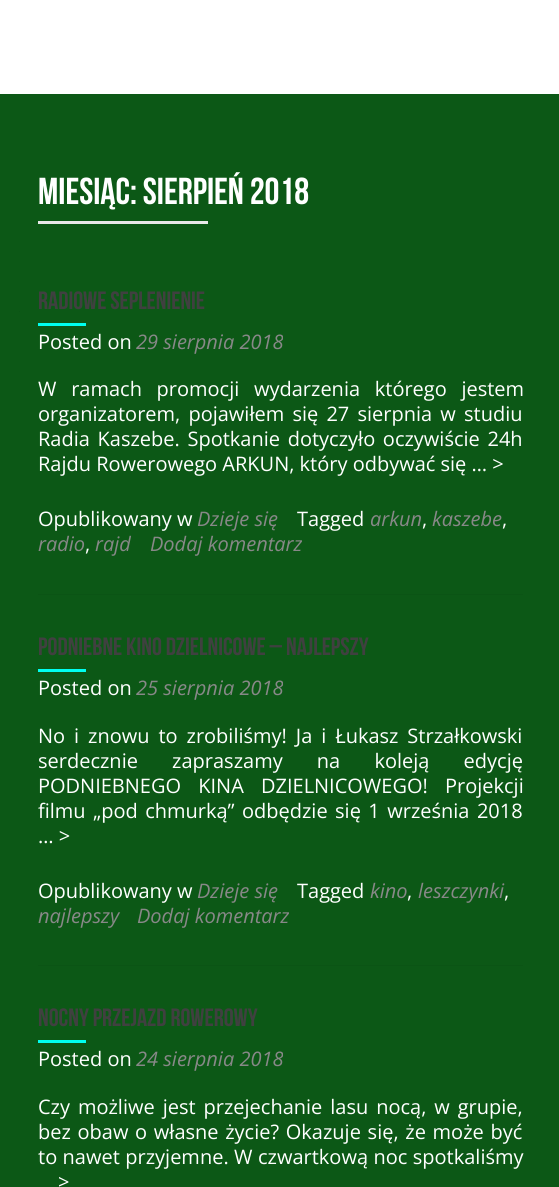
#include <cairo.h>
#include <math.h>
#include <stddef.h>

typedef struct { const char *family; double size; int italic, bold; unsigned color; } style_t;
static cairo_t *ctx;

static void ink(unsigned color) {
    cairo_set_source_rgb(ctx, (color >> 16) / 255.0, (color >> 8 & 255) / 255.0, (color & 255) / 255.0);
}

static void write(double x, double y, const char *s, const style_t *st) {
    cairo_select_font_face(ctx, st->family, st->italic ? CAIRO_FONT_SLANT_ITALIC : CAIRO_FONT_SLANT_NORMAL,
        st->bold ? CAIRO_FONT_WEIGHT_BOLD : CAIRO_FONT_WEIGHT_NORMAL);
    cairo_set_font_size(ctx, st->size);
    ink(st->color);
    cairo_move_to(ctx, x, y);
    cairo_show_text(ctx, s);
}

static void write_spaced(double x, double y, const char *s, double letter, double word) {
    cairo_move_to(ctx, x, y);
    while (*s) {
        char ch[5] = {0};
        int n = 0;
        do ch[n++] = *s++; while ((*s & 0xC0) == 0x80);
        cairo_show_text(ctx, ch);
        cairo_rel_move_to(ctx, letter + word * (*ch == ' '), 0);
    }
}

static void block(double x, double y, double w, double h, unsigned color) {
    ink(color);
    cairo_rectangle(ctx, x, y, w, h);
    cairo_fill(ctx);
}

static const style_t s1 = {"Bebas Neue", 37.5, 0, 1, 0xffffff};
static const style_t s2 = {"Bebas Neue", 25, 0, 1, 0x404040};
static const style_t s3 = {"Open Sans", 20, 0, 0, 0xffffff};
static const style_t s4 = {"Open Sans", 20, 1, 0, 0x888888};

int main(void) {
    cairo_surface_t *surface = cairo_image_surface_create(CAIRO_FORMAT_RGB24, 559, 1187);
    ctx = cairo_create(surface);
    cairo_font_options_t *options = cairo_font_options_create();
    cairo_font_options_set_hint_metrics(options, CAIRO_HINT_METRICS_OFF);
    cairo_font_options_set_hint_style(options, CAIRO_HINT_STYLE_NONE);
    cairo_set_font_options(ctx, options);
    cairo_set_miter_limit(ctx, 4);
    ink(0x0c5816);
    cairo_paint(ctx);
    block(0, 0, 559, 94, 0xffffff);
    block(19, 311, 1, 1, 0x0b5415);
    write(38, 204, "Miesiąc: sierpień 2018", &s1);
    block(38, 221, 170, 3, 0xe9e9e9);
    block(38, 594, 485, 1, 0x0b5415);
    write(38, 309, "Radiowe seplenienie", &s2);
    block(38, 323, 48, 3, 0x00fff0);
    write(38, 349, "Posted on", &s3);
    write(136, 349, "29 sierpnia 2018", &s4);
    cairo_select_font_face(ctx, "Open Sans", CAIRO_FONT_SLANT_NORMAL, CAIRO_FONT_WEIGHT_NORMAL);
    ink(0xffffff);
    write_spaced(38, 396, "W ramach promocji wydarzenia którego jestem", 0, 9.5);
    write_spaced(38, 421, "organizatorem, pojawiłem się 27 sierpnia w studiu", 0, 3);
    write_spaced(38, 446, "Radia Kaszebe. Spotkanie dotyczyło oczywiście 24h", 0, 2.5);
    write(38, 471, "Rajdu Rowerowego ARKUN, który odbywać się … >", &s3);
    write(38, 526, "Opublikowany w", &s3);
    write(197, 526, "Dzieje się", &s4);
    write(297, 526, "Tagged", &s3);
    write(370, 526, "arkun", &s4);
    write(422, 526, ",", &s3);
    write(432, 526, "kaszebe", &s4);
    write(502, 526, ",", &s3);
    write(38, 551, "radio", &s4);
    write(85, 551, ",", &s3);
    write(95, 551, "rajd", &s4);
    write(150, 551, "Dodaj komentarz", &s4);
    block(38, 965, 485, 1, 0x0b5415);
    write(38, 655, "Podniebne kino dzielnicowe – Najlepszy", &s2);
    block(38, 669, 48, 3, 0x00fff0);
    write(38, 695, "Posted on", &s3);
    write(136, 695, "25 sierpnia 2018", &s4);
    cairo_select_font_face(ctx, "Open Sans", CAIRO_FONT_SLANT_NORMAL, CAIRO_FONT_WEIGHT_NORMAL);
    ink(0xffffff);
    write_spaced(38, 743, "No i znowu to zrobiliśmy! Ja i Łukasz Strzałkowski", 0, 3.75);
    write_spaced(38, 768, "serdecznie zapraszamy na koleją edycję", 0, 29);
    write_spaced(38, 793, "PODNIEBNEGO KINA DZIELNICOWEGO! Projekcji", 0, 12);
    write_spaced(38, 818, "filmu „pod chmurką” odbędzie się 1 września 2018", 0, 2.25);
    write(38, 843, "… >", &s3);
    write(38, 898, "Opublikowany w", &s3);
    write(197, 898, "Dzieje się", &s4);
    write(297, 898, "Tagged", &s3);
    write(370, 898, "kino", &s4);
    write(407, 898, ",", &s3);
    write(418, 898, "leszczynki", &s4);
    write(504, 898, ",", &s3);
    write(38, 923, "najlepszy", &s4);
    write(137, 923, "Dodaj komentarz", &s4);
    write(38, 1026, "Nocny przejazd rowerowy", &s2);
    block(38, 1040, 48, 3, 0x00fff0);
    write(38, 1066, "Posted on", &s3);
    write(136, 1066, "24 sierpnia 2018", &s4);
    cairo_select_font_face(ctx, "Open Sans", CAIRO_FONT_SLANT_NORMAL, CAIRO_FONT_WEIGHT_NORMAL);
    ink(0xffffff);
    write_spaced(38, 1114, "Czy możliwe jest przejechanie lasu nocą, w grupie,", 0, 2.75);
    write_spaced(38, 1139, "bez obaw o własne życie? Okazuje się, że może być", 0, 1.5);
    write_spaced(38, 1164, "to nawet przyjemne. W czwartkową noc spotkaliśmy", 0, 0.25);
    write(58, 1189, ">", &s3);
    cairo_surface_write_to_png(surface, "screenshot.png");
    cairo_font_options_destroy(options);
    cairo_destroy(ctx);
    cairo_surface_destroy(surface);
    return 0;
}
